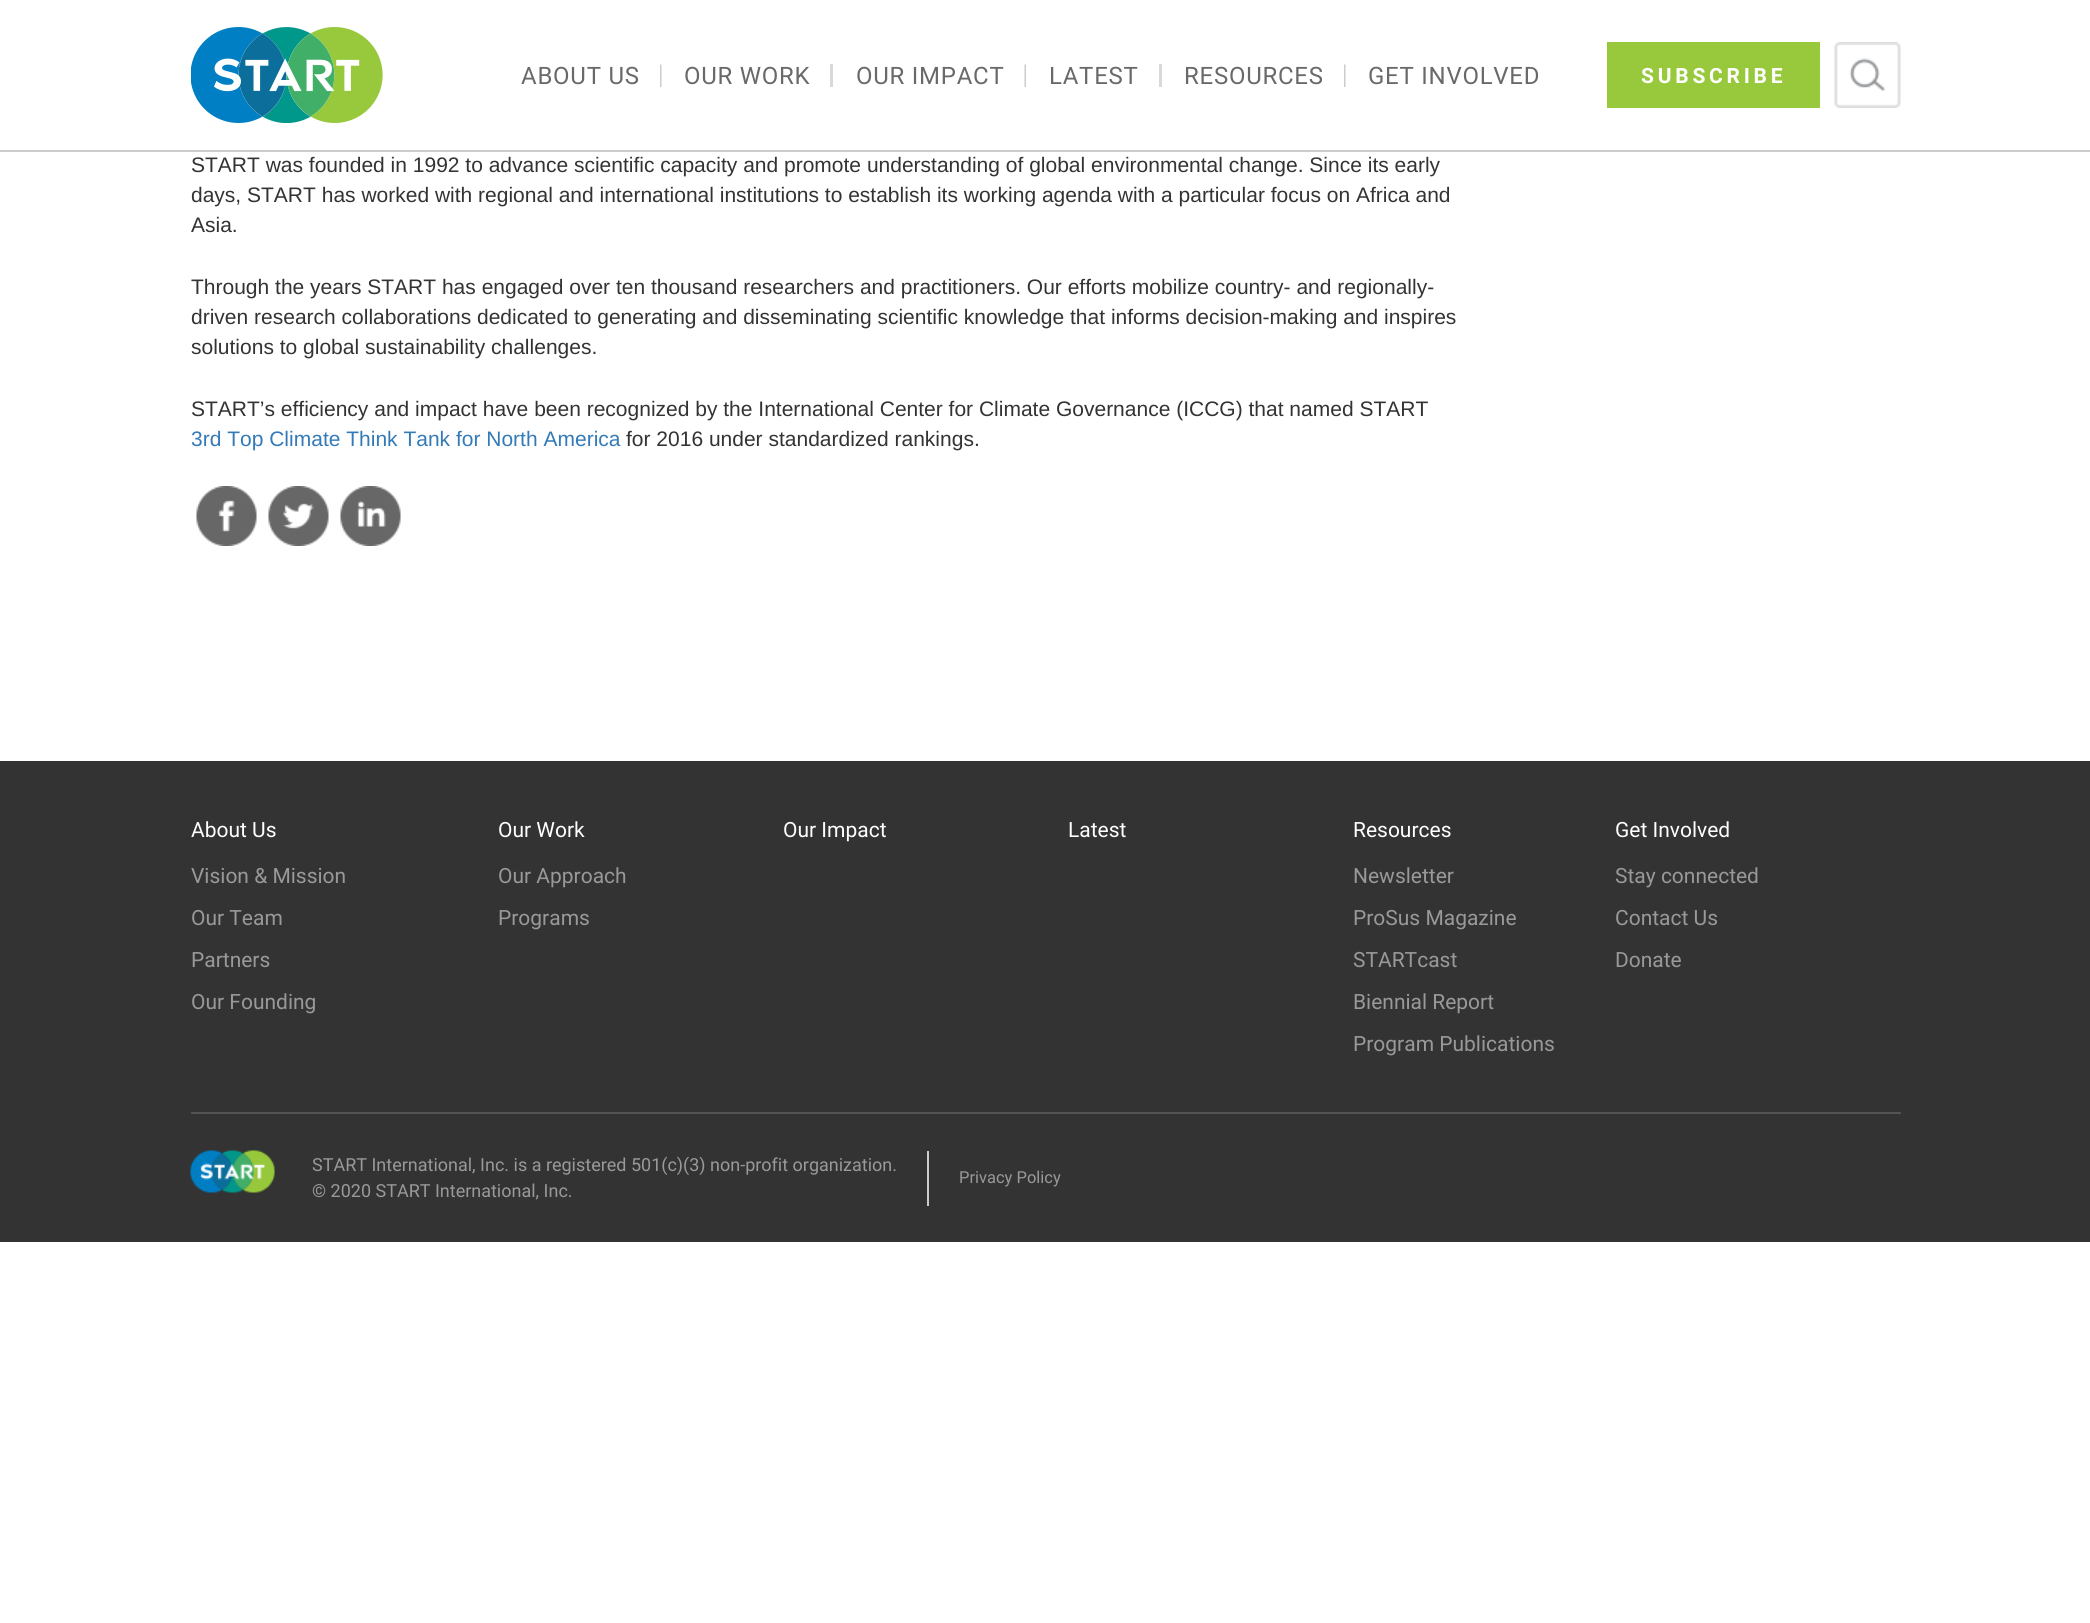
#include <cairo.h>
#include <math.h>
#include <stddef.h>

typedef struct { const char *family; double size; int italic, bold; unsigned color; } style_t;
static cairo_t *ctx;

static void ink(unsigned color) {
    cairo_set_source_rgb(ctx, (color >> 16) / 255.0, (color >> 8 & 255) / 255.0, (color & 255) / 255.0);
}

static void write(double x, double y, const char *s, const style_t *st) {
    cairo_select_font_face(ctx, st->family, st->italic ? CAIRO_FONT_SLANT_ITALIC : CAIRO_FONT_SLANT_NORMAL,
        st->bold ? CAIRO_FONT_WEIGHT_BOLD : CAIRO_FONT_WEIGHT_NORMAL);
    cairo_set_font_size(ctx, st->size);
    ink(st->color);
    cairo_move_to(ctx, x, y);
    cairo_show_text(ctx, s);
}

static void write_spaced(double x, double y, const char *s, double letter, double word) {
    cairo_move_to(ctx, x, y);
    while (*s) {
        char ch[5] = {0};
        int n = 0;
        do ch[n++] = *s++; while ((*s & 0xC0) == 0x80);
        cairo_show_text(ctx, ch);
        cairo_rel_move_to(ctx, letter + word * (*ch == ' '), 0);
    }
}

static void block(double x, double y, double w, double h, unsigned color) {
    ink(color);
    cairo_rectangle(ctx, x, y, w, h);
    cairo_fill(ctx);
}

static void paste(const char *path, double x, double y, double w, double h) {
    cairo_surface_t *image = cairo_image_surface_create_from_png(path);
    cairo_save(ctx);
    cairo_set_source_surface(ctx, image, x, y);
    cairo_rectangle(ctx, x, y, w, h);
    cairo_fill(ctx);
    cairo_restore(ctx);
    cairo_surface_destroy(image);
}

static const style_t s1 = {"Liberation Sans", 21, 0, 0, 0x333333};
static const style_t s2 = {"Liberation Sans", 21, 0, 0, 0x337ab7};
static const style_t s3 = {"Roboto", 21, 0, 0, 0xffffff};
static const style_t s4 = {"Roboto", 21, 0, 0, 0x999999};
static const style_t s5 = {"Roboto", 18, 0, 0, 0x999999};
static const style_t s6 = {"Roboto", 16.5, 0, 0, 0x999999};

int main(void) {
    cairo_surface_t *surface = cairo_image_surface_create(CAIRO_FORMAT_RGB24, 2090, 1623);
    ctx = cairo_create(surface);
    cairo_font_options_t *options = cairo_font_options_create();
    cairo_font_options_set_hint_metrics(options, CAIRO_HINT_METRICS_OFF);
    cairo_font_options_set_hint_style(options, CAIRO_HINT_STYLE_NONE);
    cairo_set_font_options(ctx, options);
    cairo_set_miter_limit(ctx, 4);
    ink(0xffffff);
    cairo_paint(ctx);
    block(0, 150, 2090, 2, 0xcccccc);
    paste("pic1.png", 191, 27, 192, 96);
    paste("pic2.png", 660, 64, 2, 23);
    cairo_select_font_face(ctx, "Roboto", CAIRO_FONT_SLANT_NORMAL, CAIRO_FONT_WEIGHT_NORMAL);
    cairo_set_font_size(ctx, 24);
    ink(0x696969);
    write_spaced(521, 84, "ABOUT US", 0.75, 0);
    block(830, 64, 3, 23, 0xd9d9d9);
    ink(0x696969);
    write_spaced(684, 84, "OUR WORK", 0.75, 0);
    paste("pic3.png", 1024, 64, 2, 23);
    write_spaced(856, 84, "OUR IMPACT", 0.75, 0);
    block(1159, 64, 3, 23, 0xd9d9d9);
    ink(0x696969);
    write_spaced(1049, 84, "LATEST", 0.75, 0);
    paste("pic2.png", 1344, 64, 2, 23);
    write_spaced(1184, 84, "RESOURCES", 0.75, 0);
    write_spaced(1368, 84, "GET INVOLVED", 0.75, 0);
    block(1607, 42, 213, 66, 0x98c93c);
    cairo_select_font_face(ctx, "Roboto", CAIRO_FONT_SLANT_NORMAL, CAIRO_FONT_WEIGHT_BOLD);
    cairo_set_font_size(ctx, 21);
    ink(0xffffff);
    write_spaced(1641, 83, "SUBSCRIBE", 3.75, 0);
    paste("pic4.png", 1834, 42, 67, 66);
    write(191, 172, "START was founded in 1992 to advance scientific capacity and promote understanding of global environmental change. Since its early", &s1);
    write(191, 202, "days, START has worked with regional and international institutions to establish its working agenda with a particular focus on Africa and", &s1);
    write(191, 232, "Asia.", &s1);
    write(191, 294, "Through the years START has engaged over ten thousand researchers and practitioners. Our efforts mobilize country- and regionally-", &s1);
    write(191, 324, "driven research collaborations dedicated to generating and disseminating scientific knowledge that informs decision-making and inspires", &s1);
    write(191, 354, "solutions to global sustainability challenges.", &s1);
    write(191, 416, "START’s efficiency and impact have been recognized by the International Center for Climate Governance (ICCG) that named START", &s1);
    write(191, 446, "3rd Top Climate Think Tank for North America", &s2);
    write(626, 446, "for 2016 under standardized rankings.", &s1);
    paste("pic5.png", 196, 486, 61, 60);
    paste("pic6.png", 268, 486, 61, 60);
    paste("pic7.png", 340, 486, 61, 60);
    block(0, 761, 2090, 481, 0x323332);
    write(191, 837, "About Us", &s3);
    write(191, 883, "Vision & Mission", &s4);
    write(191, 925, "Our Team", &s4);
    write(191, 967, "Partners", &s4);
    write(191, 1009, "Our Founding", &s4);
    write(498, 837, "Our Work", &s3);
    write(498, 883, "Our Approach", &s4);
    write(498, 925, "Programs", &s4);
    write(783, 837, "Our Impact", &s3);
    write(1068, 837, "Latest", &s3);
    write(1353, 837, "Resources", &s3);
    write(1353, 883, "Newsletter", &s4);
    write(1353, 925, "ProSus Magazine", &s4);
    write(1353, 967, "STARTcast", &s4);
    write(1353, 1009, "Biennial Report", &s4);
    write(1353, 1051, "Program Publications", &s4);
    write(1615, 837, "Get Involved", &s3);
    write(1615, 883, "Stay connected", &s4);
    write(1615, 925, "Contact Us", &s4);
    write(1615, 967, "Donate", &s4);
    block(191, 1112, 1710, 2, 0x535353);
    paste("pic8.png", 190, 1150, 85, 43);
    block(927, 1151, 2, 55, 0xcccccc);
    write(312, 1171, "START International, Inc. is a registered 501(c)(3) non-profit organization.", &s5);
    write(312, 1197, "© 2020 START International, Inc.", &s5);
    write(959, 1183, "Privacy Policy", &s6);
    cairo_surface_write_to_png(surface, "screenshot.png");
    cairo_font_options_destroy(options);
    cairo_destroy(ctx);
    cairo_surface_destroy(surface);
    return 0;
}
